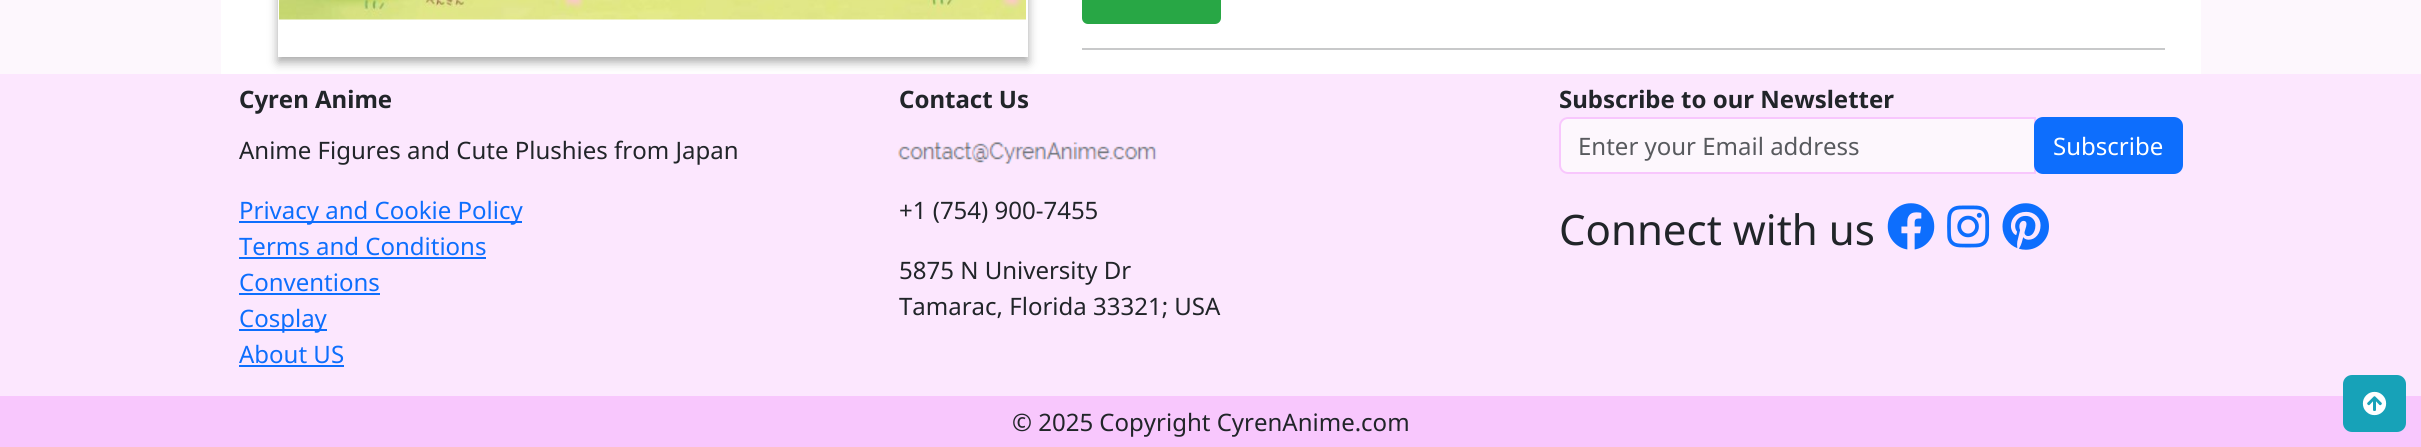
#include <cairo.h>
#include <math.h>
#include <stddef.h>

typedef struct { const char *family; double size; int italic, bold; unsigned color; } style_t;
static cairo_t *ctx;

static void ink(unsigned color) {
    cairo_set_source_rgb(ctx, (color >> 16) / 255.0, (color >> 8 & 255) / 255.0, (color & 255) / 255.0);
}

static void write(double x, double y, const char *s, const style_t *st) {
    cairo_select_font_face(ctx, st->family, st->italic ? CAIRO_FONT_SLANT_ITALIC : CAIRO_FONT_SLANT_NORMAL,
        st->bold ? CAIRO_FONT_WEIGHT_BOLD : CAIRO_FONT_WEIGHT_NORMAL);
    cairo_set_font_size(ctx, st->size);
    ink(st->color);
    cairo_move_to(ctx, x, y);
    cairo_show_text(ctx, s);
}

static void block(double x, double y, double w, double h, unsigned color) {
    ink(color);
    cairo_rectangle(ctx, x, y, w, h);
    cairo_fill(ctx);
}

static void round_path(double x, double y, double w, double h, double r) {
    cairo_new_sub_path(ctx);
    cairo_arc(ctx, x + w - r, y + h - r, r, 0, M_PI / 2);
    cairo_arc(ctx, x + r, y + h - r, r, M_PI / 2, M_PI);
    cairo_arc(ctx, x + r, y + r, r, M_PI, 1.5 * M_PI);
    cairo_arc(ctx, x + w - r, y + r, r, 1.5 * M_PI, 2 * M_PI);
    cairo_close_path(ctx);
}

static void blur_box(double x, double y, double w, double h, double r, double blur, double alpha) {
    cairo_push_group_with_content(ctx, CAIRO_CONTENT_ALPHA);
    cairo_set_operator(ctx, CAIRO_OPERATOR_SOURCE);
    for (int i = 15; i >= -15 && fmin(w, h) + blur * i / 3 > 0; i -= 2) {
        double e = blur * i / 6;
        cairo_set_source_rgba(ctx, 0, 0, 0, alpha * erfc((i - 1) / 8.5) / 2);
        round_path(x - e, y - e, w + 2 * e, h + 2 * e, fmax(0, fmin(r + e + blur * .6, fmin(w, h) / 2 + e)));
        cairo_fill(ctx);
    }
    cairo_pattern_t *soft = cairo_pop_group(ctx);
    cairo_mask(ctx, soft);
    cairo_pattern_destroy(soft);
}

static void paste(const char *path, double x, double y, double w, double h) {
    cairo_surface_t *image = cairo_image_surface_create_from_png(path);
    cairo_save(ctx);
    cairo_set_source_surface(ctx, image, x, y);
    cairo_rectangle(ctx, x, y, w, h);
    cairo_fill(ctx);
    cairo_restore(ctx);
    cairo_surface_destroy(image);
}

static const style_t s1 = {"Noto Sans", 24, 0, 1, 0x212529};
static const style_t s2 = {"Noto Sans", 24, 0, 0, 0x212529};
static const style_t s3 = {"Noto Sans", 24, 0, 0, 0x0d6efd};
static const style_t s4 = {"Noto Sans", 24, 0, 0, 0x585a5e};
static const style_t s5 = {"Noto Sans", 24, 0, 0, 0xffffff};
static const style_t s6 = {"Noto Sans", 42, 0, 0, 0x212529};

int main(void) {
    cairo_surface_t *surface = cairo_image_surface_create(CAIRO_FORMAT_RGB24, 2421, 447);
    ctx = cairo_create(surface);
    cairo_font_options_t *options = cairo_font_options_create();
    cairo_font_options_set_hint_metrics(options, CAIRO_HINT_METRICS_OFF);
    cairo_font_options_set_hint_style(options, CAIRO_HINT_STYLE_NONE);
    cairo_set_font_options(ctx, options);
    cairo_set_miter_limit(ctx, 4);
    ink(0xfdf7fd);
    cairo_paint(ctx);
    block(221, 0, 1980, 74, 0xffffff);
    block(0, 74, 2421, 322, 0xfce7fe);
    cairo_save(ctx);
    cairo_set_fill_rule(ctx, CAIRO_FILL_RULE_EVEN_ODD);
    cairo_new_path(ctx);
    cairo_move_to(ctx, 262, 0);
    cairo_line_to(ctx, 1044, 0);
    cairo_line_to(ctx, 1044, 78);
    cairo_line_to(ctx, 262, 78);
    cairo_close_path(ctx);
    cairo_move_to(ctx, 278, -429);
    cairo_line_to(ctx, 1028, -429);
    cairo_line_to(ctx, 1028, 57);
    cairo_line_to(ctx, 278, 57);
    cairo_close_path(ctx);
    cairo_clip(ctx);
    ink(0xa8a8a8);
    blur_box(278, -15, 750, 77, 0, 5, 1);
    cairo_restore(ctx);
    block(1027, 0, 1, 21, 0xffffff);
    paste("pic1.png", 279, 0, 747, 20);
    ink(0x28a745);
    round_path(1083, -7, 137, 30, 5);
    cairo_fill_preserve(ctx);
    cairo_stroke(ctx);
    block(1082, 48, 1083, 2, 0xc8c9ca);
    write(239, 108, "Cyren Anime", &s1);
    write(239, 159, "Anime Figures and Cute Plushies from Japan", &s2);
    block(239, 221, 283, 2, 0x0d6efd);
    write(239, 219, "Privacy and Cookie Policy", &s3);
    write(239, 255, "Terms and Conditions", &s3);
    block(239, 257, 247, 2, 0x0d6efd);
    write(239, 291, "Conventions", &s3);
    block(239, 293, 141, 2, 0x0d6efd);
    block(239, 329, 88, 2, 0x0d6efd);
    write(239, 327, "Cosplay", &s3);
    write(239, 363, "About US", &s3);
    block(239, 365, 105, 2, 0x0d6efd);
    write(899, 108, "Contact Us", &s1);
    paste("pic2.png", 898, 142, 259, 22);
    write(899, 219, "+1 (754) 900-7455", &s2);
    write(899, 279, "5875 N University Dr", &s2);
    write(899, 315, "Tamarac, Florida 33321; USA", &s2);
    write(1559, 108, "Subscribe to our Newsletter", &s1);
    ink(0xfdf7fd);
    cairo_new_path(ctx);
    cairo_move_to(ctx, 1568, 118);
    cairo_line_to(ctx, 2035, 118);
    cairo_line_to(ctx, 2035, 173);
    cairo_line_to(ctx, 1568, 173);
    cairo_curve_to(ctx, 1563.5, 173, 1560, 169.5, 1560, 165);
    cairo_line_to(ctx, 1560, 126);
    cairo_curve_to(ctx, 1560, 121.5, 1563.5, 118, 1568, 118);
    cairo_close_path(ctx);
    cairo_fill_preserve(ctx);
    ink(0xf8c7fd);
    cairo_stroke(ctx);
    write(1578, 155, "Enter your Email address", &s4);
    ink(0x0d6efd);
    round_path(2035, 118, 147, 55, 8);
    cairo_fill_preserve(ctx);
    cairo_stroke(ctx);
    write(2053, 155, "Subscribe", &s5);
    write(1559, 245, "Connect with us", &s6);
    paste("pic3.png", 1887, 203, 48, 47);
    paste("pic4.png", 1947, 205, 43, 43);
    paste("pic5.png", 2002, 203, 47, 47);
    block(0, 396, 2421, 51, 0xf8c7fd);
    write(1012, 431, "© 2025 Copyright CyrenAnime.com", &s2);
    ink(0x17a2b8);
    round_path(2344, 376, 61, 55, 8);
    cairo_fill_preserve(ctx);
    cairo_stroke(ctx);
    paste("pic6.png", 2362, 391, 25, 25);
    cairo_surface_write_to_png(surface, "screenshot.png");
    cairo_font_options_destroy(options);
    cairo_destroy(ctx);
    cairo_surface_destroy(surface);
    return 0;
}
